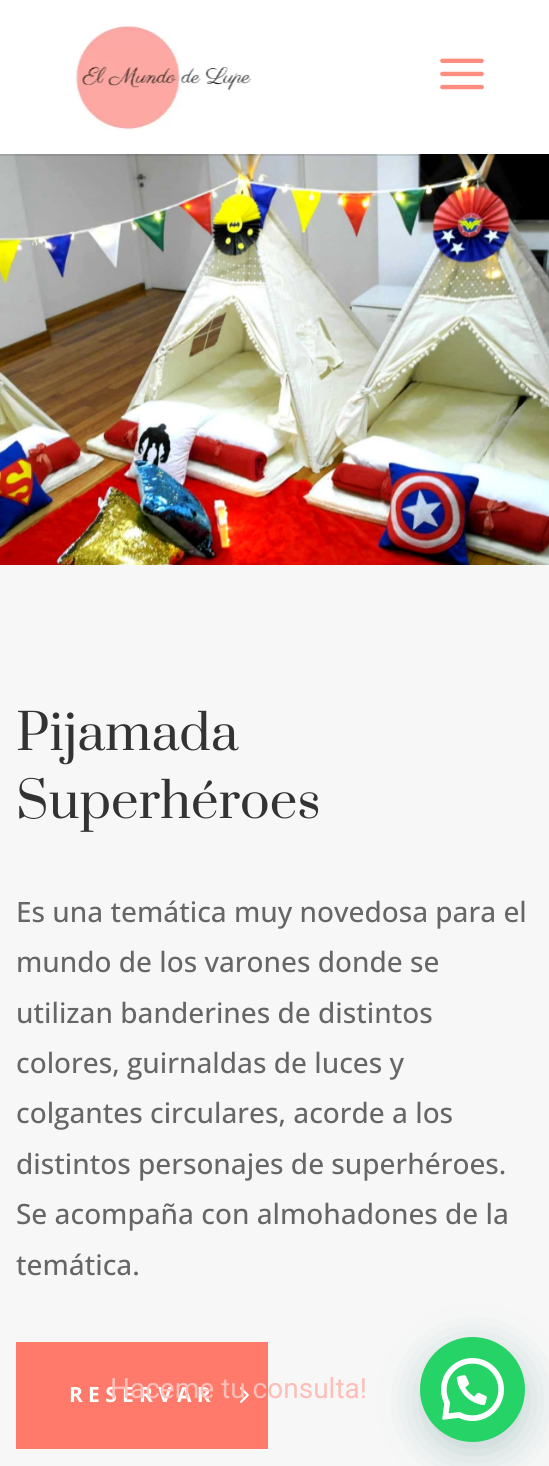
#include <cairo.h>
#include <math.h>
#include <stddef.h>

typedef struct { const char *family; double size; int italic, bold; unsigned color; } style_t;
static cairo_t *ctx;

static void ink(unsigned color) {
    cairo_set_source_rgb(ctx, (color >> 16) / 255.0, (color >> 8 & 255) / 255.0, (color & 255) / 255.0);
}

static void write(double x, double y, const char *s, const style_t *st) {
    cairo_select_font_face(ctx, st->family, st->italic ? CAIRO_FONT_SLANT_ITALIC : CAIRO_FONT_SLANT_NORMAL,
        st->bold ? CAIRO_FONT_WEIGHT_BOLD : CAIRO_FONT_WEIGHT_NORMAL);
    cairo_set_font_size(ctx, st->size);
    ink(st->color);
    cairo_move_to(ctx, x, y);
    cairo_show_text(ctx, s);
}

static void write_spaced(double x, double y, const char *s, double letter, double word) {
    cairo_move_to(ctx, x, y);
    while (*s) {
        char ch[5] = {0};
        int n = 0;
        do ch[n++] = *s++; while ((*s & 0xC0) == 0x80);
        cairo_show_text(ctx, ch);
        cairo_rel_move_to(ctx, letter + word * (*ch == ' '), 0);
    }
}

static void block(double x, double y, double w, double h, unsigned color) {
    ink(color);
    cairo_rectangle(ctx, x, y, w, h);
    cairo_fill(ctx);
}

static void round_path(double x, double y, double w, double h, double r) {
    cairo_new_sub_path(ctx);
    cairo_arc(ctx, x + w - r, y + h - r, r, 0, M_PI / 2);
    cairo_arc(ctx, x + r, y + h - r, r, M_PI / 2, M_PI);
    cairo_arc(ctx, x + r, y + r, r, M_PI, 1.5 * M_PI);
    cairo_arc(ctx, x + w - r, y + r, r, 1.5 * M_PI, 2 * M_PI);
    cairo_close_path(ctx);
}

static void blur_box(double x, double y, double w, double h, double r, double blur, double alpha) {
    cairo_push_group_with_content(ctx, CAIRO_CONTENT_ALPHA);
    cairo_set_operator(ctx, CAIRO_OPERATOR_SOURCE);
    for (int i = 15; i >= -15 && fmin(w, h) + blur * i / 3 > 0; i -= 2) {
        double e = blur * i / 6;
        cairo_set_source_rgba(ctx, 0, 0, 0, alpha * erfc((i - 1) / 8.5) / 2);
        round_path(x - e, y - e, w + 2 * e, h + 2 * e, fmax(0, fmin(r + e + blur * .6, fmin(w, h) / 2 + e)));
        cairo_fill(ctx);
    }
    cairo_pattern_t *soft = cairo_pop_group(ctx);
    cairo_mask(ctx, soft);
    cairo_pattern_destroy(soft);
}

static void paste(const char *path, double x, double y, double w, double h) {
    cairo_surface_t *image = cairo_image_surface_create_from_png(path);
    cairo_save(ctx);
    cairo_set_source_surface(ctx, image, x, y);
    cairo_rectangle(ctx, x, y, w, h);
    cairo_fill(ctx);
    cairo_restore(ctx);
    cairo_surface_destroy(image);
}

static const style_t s1 = {"Prata", 49, 0, 0, 0x333333};
static const style_t s2 = {"Open Sans Medium", 28, 0, 0, 0x666666};
static const style_t s3 = {"Roboto", 28, 0, 0, 0xfcbeb7};

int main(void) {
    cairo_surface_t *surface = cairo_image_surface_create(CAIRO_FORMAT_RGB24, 549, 1466);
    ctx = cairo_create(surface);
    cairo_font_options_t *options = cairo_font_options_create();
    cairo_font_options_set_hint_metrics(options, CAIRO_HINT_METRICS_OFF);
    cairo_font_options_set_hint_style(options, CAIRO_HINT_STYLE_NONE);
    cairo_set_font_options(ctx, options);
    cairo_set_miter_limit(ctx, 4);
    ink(0xf7f7f7);
    cairo_paint(ctx);
    paste("pic3.png", 0, 154, 549, 411);
    cairo_set_source_rgba(ctx, 0, 0, 0, 0.1);
    cairo_new_path(ctx);
    cairo_move_to(ctx, 0, 154);
    cairo_line_to(ctx, 0, 156);
    cairo_line_to(ctx, 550, 156);
    cairo_line_to(ctx, 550, 2);
    cairo_line_to(ctx, 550, 154);
    cairo_close_path(ctx);
    cairo_fill(ctx);
    block(0, 0, 549, 154, 0xffffff);
    paste("pic1.png", 74, 26, 177, 104);
    paste("pic2.png", 440, 58, 44, 32);
    write(16, 750, "Pijamada", &s1);
    write(16, 818, "Superhéroes", &s1);
    write(16, 922, "Es una temática muy novedosa para el", &s2);
    write(16, 972, "mundo de los varones donde se", &s2);
    write(16, 1023, "utilizan banderines de distintos", &s2);
    write(16, 1073, "colores, guirnaldas de luces y", &s2);
    write(16, 1123, "colgantes circulares, acorde a los", &s2);
    write(16, 1174, "distintos personajes de superhéroes.", &s2);
    write(16, 1224, "Se acompaña con almohadones de la", &s2);
    write(16, 1275, "temática.", &s2);
    block(16, 1342, 252, 107, 0xff7a6b);
    cairo_select_font_face(ctx, "Open Sans", CAIRO_FONT_SLANT_NORMAL, CAIRO_FONT_WEIGHT_BOLD);
    cairo_set_font_size(ctx, 21);
    ink(0xffffff);
    write_spaced(69, 1402, "RESERVAR", 5.25, 0);
    paste("pic4.png", 239, 1387, 10, 16);
    ink(0x075e54);
    blur_box(422, 1348, 105, 105, 52.5, 21, 0.24);
    ink(0x25d366);
    cairo_arc(ctx, 472.5, 1389.5, 52.5, 0, 2 * M_PI);
    cairo_fill(ctx);
    paste("pic5.png", 441, 1358, 63, 63);
    write(110, 1398, "Haceme tu consulta!", &s3);
    cairo_surface_write_to_png(surface, "screenshot.png");
    cairo_font_options_destroy(options);
    cairo_destroy(ctx);
    cairo_surface_destroy(surface);
    return 0;
}
